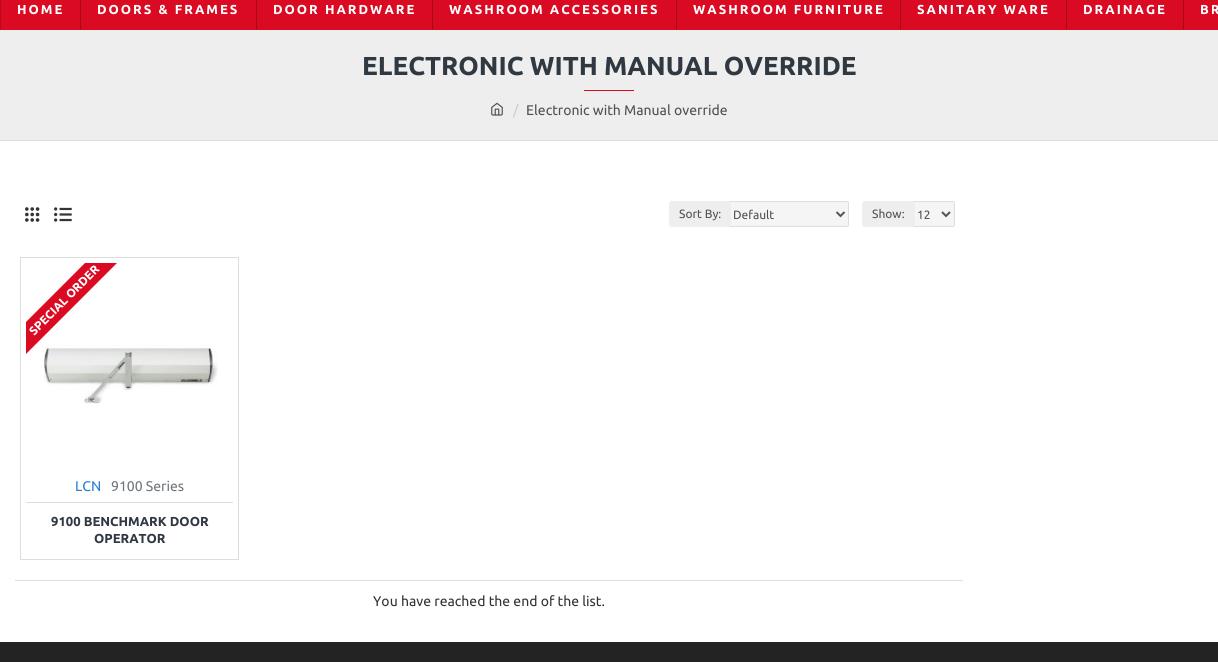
#include <cairo.h>
#include <math.h>
#include <stddef.h>

typedef struct { const char *family; double size; int italic, bold; unsigned color; } style_t;
static cairo_t *ctx;

static void ink(unsigned color) {
    cairo_set_source_rgb(ctx, (color >> 16) / 255.0, (color >> 8 & 255) / 255.0, (color & 255) / 255.0);
}

static void write(double x, double y, const char *s, const style_t *st) {
    cairo_select_font_face(ctx, st->family, st->italic ? CAIRO_FONT_SLANT_ITALIC : CAIRO_FONT_SLANT_NORMAL,
        st->bold ? CAIRO_FONT_WEIGHT_BOLD : CAIRO_FONT_WEIGHT_NORMAL);
    cairo_set_font_size(ctx, st->size);
    ink(st->color);
    cairo_move_to(ctx, x, y);
    cairo_show_text(ctx, s);
}

static void write_spaced(double x, double y, const char *s, double letter, double word) {
    cairo_move_to(ctx, x, y);
    while (*s) {
        char ch[5] = {0};
        int n = 0;
        do ch[n++] = *s++; while ((*s & 0xC0) == 0x80);
        cairo_show_text(ctx, ch);
        cairo_rel_move_to(ctx, letter + word * (*ch == ' '), 0);
    }
}

static void block(double x, double y, double w, double h, unsigned color) {
    ink(color);
    cairo_rectangle(ctx, x, y, w, h);
    cairo_fill(ctx);
}

static void round_path(double x, double y, double w, double h, double r) {
    cairo_new_sub_path(ctx);
    cairo_arc(ctx, x + w - r, y + h - r, r, 0, M_PI / 2);
    cairo_arc(ctx, x + r, y + h - r, r, M_PI / 2, M_PI);
    cairo_arc(ctx, x + r, y + r, r, M_PI, 1.5 * M_PI);
    cairo_arc(ctx, x + w - r, y + r, r, 1.5 * M_PI, 2 * M_PI);
    cairo_close_path(ctx);
}

static void paste(const char *path, double x, double y, double w, double h) {
    cairo_surface_t *image = cairo_image_surface_create_from_png(path);
    cairo_save(ctx);
    cairo_set_source_surface(ctx, image, x, y);
    cairo_rectangle(ctx, x, y, w, h);
    cairo_fill(ctx);
    cairo_restore(ctx);
    cairo_surface_destroy(image);
}

static const style_t s1 = {"Ubuntu", 26, 0, 1, 0x303841};
static const style_t s2 = {"Ubuntu", 14, 0, 0, 0xcccccc};
static const style_t s3 = {"Ubuntu", 14, 0, 0, 0x505050};
static const style_t s4 = {"Ubuntu", 12, 0, 0, 0x505050};
static const style_t s5 = {"Ubuntu", 12, 0, 1, 0xffffff};
static const style_t s6 = {"Ubuntu", 14, 0, 0, 0x277cd9};
static const style_t s7 = {"Ubuntu", 14, 0, 0, 0x6d767d};
static const style_t s8 = {"Ubuntu", 13, 0, 1, 0x303841};
static const style_t s9 = {"Ubuntu", 14, 0, 0, 0x333333};

int main(void) {
    cairo_surface_t *surface = cairo_image_surface_create(CAIRO_FORMAT_RGB24, 1218, 662);
    ctx = cairo_create(surface);
    cairo_font_options_t *options = cairo_font_options_create();
    cairo_font_options_set_hint_metrics(options, CAIRO_HINT_METRICS_OFF);
    cairo_font_options_set_hint_style(options, CAIRO_HINT_STYLE_NONE);
    cairo_set_font_options(ctx, options);
    cairo_set_miter_limit(ctx, 4);
    ink(0xffffff);
    cairo_paint(ctx);
    block(1, 0, 1217, 30, 0xda0a22);
    block(0, 0, 1, 30, 0xb9091e);
    cairo_select_font_face(ctx, "Ubuntu", CAIRO_FONT_SLANT_NORMAL, CAIRO_FONT_WEIGHT_BOLD);
    cairo_set_font_size(ctx, 13);
    ink(0xffffff);
    write_spaced(17, 14, "HOME", 2, 0);
    block(80, 0, 1, 30, 0xa8081b);
    ink(0xffffff);
    write_spaced(97, 14, "DOORS & FRAMES", 2, 0);
    block(256, 0, 1, 30, 0xa8081b);
    ink(0xffffff);
    write_spaced(273, 14, "DOOR HARDWARE", 2, 0);
    block(432, 0, 1, 30, 0xa8081b);
    ink(0xffffff);
    write_spaced(449, 14, "WASHROOM ACCESSORIES", 2, 0);
    block(676, 0, 1, 30, 0xa8081b);
    ink(0xffffff);
    write_spaced(693, 14, "WASHROOM FURNITURE", 2, 0);
    block(900, 0, 1, 30, 0xa8081b);
    ink(0xffffff);
    write_spaced(917, 14, "SANITARY WARE", 2, 0);
    block(1066, 0, 1, 30, 0xa8081b);
    ink(0xffffff);
    write_spaced(1083, 14, "DRAINAGE", 2, 0);
    block(1183, 0, 1, 30, 0xa8081b);
    ink(0xffffff);
    write_spaced(1200, 14, "BR", 2, 0);
    block(0, 30, 1218, 110, 0xeeeeee);
    write(362, 75, "ELECTRONIC WITH MANUAL OVERRIDE", &s1);
    block(584, 90, 50, 1, 0xda0a22);
    block(0, 140, 1218, 1, 0xdddddd);
    paste("pic1.png", 491, 102, 12, 14);
    write(513, 115, "/", &s2);
    write(526, 115, "Electronic with Manual override", &s3);
    paste("pic2.png", 25, 207, 15, 15);
    paste("pic3.png", 54, 207, 18, 15);
    ink(0xf5f5f5);
    round_path(728.5, 201.5, 120, 25, 1.5);
    cairo_fill_preserve(ctx);
    ink(0xdddddd);
    cairo_set_line_width(ctx, 1);
    cairo_stroke(ctx);
    ink(0xeeeeee);
    round_path(669, 201, 62, 26, 3);
    cairo_fill(ctx);
    write(679, 218, "Sort By:", &s4);
    cairo_new_path(ctx);
    cairo_move_to(ctx, 836.5, 212);
    cairo_line_to(ctx, 840.5, 216);
    cairo_line_to(ctx, 844.5, 212);
    ink(0x555555);
    cairo_set_line_width(ctx, 2);
    cairo_stroke(ctx);
    write(733, 219, "Default", &s4);
    ink(0xf5f5f5);
    round_path(912.5, 201.5, 42, 25, 1.5);
    cairo_fill_preserve(ctx);
    ink(0xdddddd);
    cairo_set_line_width(ctx, 1);
    cairo_stroke(ctx);
    ink(0xeeeeee);
    round_path(862, 201, 53, 26, 3);
    cairo_fill(ctx);
    write(872, 218, "Show:", &s4);
    cairo_new_path(ctx);
    cairo_move_to(ctx, 942, 212);
    cairo_line_to(ctx, 946, 216);
    cairo_line_to(ctx, 950, 212);
    ink(0x555555);
    cairo_set_line_width(ctx, 2);
    cairo_stroke(ctx);
    write(917, 219, "12", &s4);
    cairo_rectangle(ctx, 20.5, 257.5, 218, 302);
    ink(0xdddddd);
    cairo_set_line_width(ctx, 1);
    cairo_stroke(ctx);
    paste("pic4.png", 44, 343, 174, 61);
    cairo_save(ctx);
    cairo_rectangle(ctx, 26, 263, 207, 208);
    cairo_clip(ctx);
    ink(0xda0a22);
    cairo_new_path(ctx);
    cairo_move_to(ctx, -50, 398);
    cairo_line_to(ctx, 162, 186);
    cairo_line_to(ctx, 178, 202);
    cairo_line_to(ctx, -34, 414);
    cairo_close_path(ctx);
    cairo_fill(ctx);
    cairo_restore(ctx);
    cairo_save(ctx);
    cairo_translate(ctx, 34, 336);
    cairo_rotate(ctx, -45 * M_PI / 180);
    write(0, 0, "SPECIAL ORDER", &s5);
    cairo_restore(ctx);
    block(26, 502, 207, 1, 0xdddddd);
    write(75, 491, "LCN", &s6);
    write(111, 491, "9100 Series", &s7);
    write(51, 526, "9100 BENCHMARK DOOR", &s8);
    write(94, 543, "OPERATOR", &s8);
    block(15, 580, 948, 1, 0xdddddd);
    write(373, 606, "You have reached the end of the list.", &s9);
    block(0, 642, 1218, 20, 0x232323);
    cairo_surface_write_to_png(surface, "screenshot.png");
    cairo_font_options_destroy(options);
    cairo_destroy(ctx);
    cairo_surface_destroy(surface);
    return 0;
}
